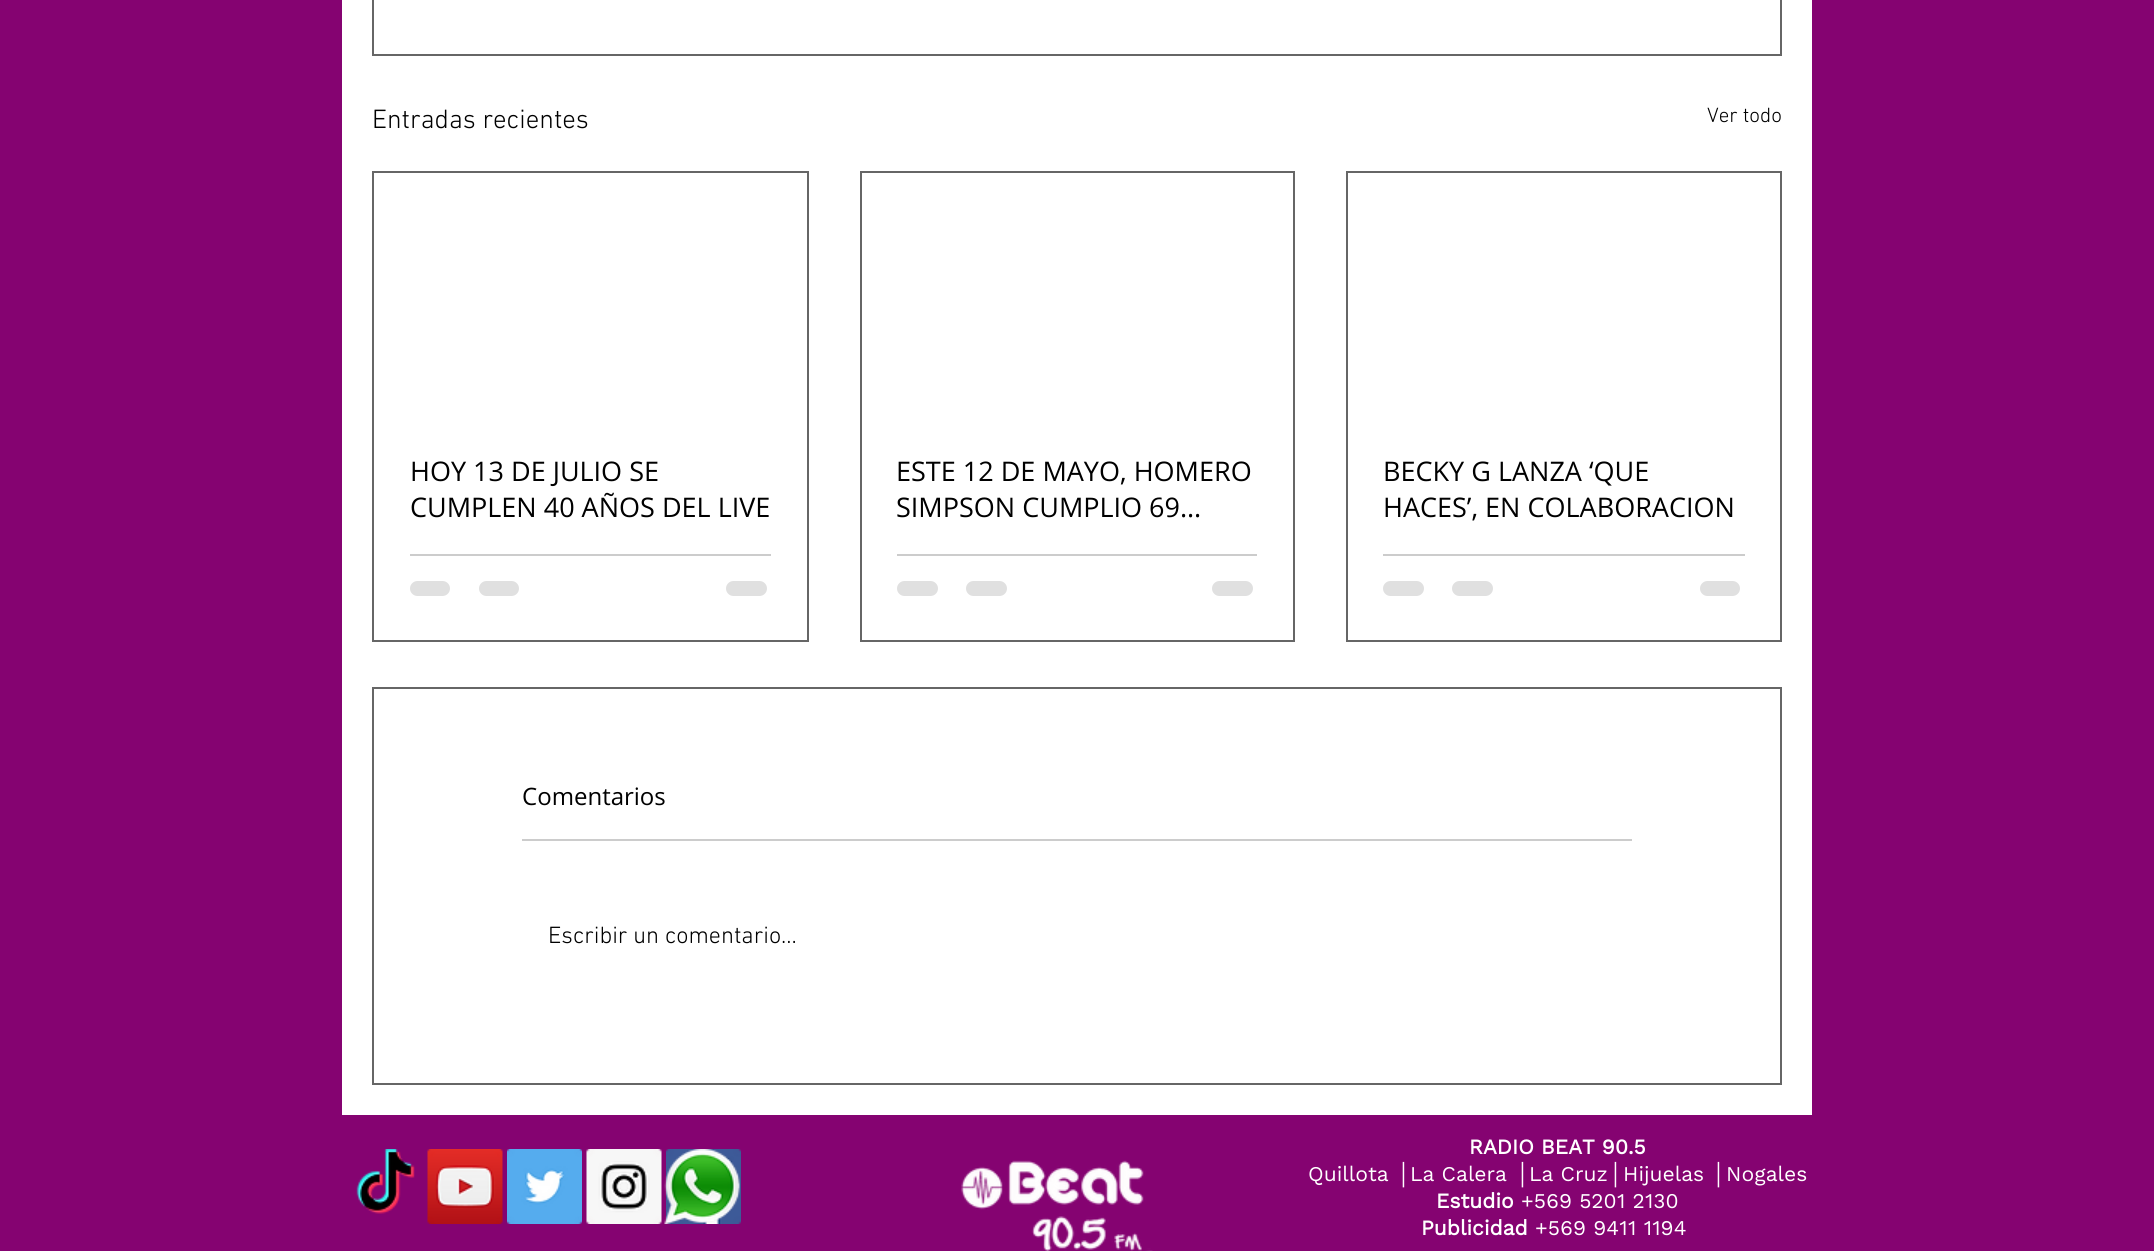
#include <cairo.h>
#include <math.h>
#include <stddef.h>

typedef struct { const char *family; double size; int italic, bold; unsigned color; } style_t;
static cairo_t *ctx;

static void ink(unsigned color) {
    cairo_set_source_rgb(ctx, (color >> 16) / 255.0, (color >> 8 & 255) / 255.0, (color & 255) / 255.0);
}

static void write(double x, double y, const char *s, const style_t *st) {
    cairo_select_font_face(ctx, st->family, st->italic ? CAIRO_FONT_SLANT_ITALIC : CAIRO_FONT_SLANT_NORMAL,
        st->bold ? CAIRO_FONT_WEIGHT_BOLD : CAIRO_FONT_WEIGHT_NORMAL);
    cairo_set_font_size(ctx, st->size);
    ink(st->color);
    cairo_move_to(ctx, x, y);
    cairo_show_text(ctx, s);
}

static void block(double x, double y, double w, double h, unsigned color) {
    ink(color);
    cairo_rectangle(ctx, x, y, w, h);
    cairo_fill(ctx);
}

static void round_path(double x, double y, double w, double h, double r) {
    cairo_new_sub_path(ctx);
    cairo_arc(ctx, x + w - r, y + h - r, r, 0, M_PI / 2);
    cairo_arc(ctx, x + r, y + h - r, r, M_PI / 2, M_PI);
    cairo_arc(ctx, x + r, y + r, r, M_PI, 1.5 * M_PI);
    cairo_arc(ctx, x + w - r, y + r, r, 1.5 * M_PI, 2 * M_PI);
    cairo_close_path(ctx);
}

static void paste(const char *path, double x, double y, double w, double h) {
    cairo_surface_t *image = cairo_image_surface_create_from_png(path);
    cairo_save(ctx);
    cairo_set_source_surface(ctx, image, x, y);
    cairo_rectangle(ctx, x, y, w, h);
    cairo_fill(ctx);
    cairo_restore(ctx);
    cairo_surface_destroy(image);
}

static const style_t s1 = {"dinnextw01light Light", 27, 0, 0, 0x000000};
static const style_t s2 = {"dinnextw01light Light", 21, 0, 0, 0x000000};
static const style_t s3 = {"Open Sans", 27, 0, 0, 0x000000};
static const style_t s4 = {"Open Sans", 24, 0, 0, 0x000000};
static const style_t s5 = {"dinnextw01light Light", 24, 0, 0, 0x000000};
static const style_t s6 = {"Work Sans", 21, 0, 1, 0xffffff};
static const style_t s7 = {"Work Sans", 21, 0, 0, 0xffffff};
static const style_t s8 = {"Liberation Serif", 21, 0, 0, 0xffffff};

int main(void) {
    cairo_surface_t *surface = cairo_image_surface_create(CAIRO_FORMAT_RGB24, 2154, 1251);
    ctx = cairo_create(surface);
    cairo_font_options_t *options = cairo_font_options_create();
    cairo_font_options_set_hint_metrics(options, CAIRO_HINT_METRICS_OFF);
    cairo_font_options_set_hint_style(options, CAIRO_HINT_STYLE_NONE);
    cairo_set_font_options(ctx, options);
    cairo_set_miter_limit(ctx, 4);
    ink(0x850371);
    cairo_paint(ctx);
    block(342, 0, 1470, 1115, 0xffffff);
    cairo_rectangle(ctx, 373, -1, 1408, 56);
    ink(0x666666);
    cairo_stroke(ctx);
    write(372, 128, "Entradas recientes", &s1);
    write(1707, 122, "Ver todo", &s2);
    cairo_rectangle(ctx, 373, 172, 435, 469);
    ink(0x666666);
    cairo_stroke(ctx);
    write(410, 481, "HOY 13 DE JULIO SE", &s3);
    write(410, 517, "CUMPLEN 40 AÑOS DEL LIVE", &s3);
    block(410, 554, 361, 2, 0xcccccc);
    ink(0xe0e0e0);
    round_path(410, 581, 40, 15, 7.5);
    cairo_fill(ctx);
    round_path(479, 581, 40, 15, 7.5);
    cairo_fill(ctx);
    round_path(726, 581, 41, 15, 7.5);
    cairo_fill(ctx);
    cairo_rectangle(ctx, 861, 172, 433, 469);
    ink(0x666666);
    cairo_stroke(ctx);
    write(896, 481, "ESTE 12 DE MAYO, HOMERO", &s3);
    write(896, 517, "SIMPSON CUMPLIO 69…", &s3);
    block(897, 554, 360, 2, 0xcccccc);
    ink(0xe0e0e0);
    round_path(897, 581, 41, 15, 7.5);
    cairo_fill(ctx);
    round_path(966, 581, 41, 15, 7.5);
    cairo_fill(ctx);
    round_path(1212, 581, 41, 15, 7.5);
    cairo_fill(ctx);
    cairo_rectangle(ctx, 1347, 172, 434, 469);
    ink(0x666666);
    cairo_stroke(ctx);
    write(1383, 481, "BECKY G LANZA ‘QUE", &s3);
    write(1383, 517, "HACES’, EN COLABORACION", &s3);
    block(1383, 554, 362, 2, 0xcccccc);
    ink(0xe0e0e0);
    round_path(1383, 581, 41, 15, 7.5);
    cairo_fill(ctx);
    round_path(1452, 581, 41, 15, 7.5);
    cairo_fill(ctx);
    round_path(1700, 581, 40, 15, 7.5);
    cairo_fill(ctx);
    cairo_rectangle(ctx, 373, 688, 1408, 396);
    ink(0x666666);
    cairo_stroke(ctx);
    write(522, 805, "Comentarios", &s4);
    block(522, 839, 1110, 2, 0xcccccc);
    write(548, 943, "Escribir un comentario...", &s5);
    paste("pic1.png", 356, 1149, 59, 65);
    paste("pic2.png", 427, 1149, 76, 75);
    paste("pic3.png", 507, 1149, 75, 75);
    paste("pic4.png", 586, 1149, 76, 75);
    paste("pic5.png", 666, 1149, 75, 75);
    write(1469, 1154, "RADIO BEAT 90.5", &s6);
    write(1308, 1181, "Quillota", &s7);
    write(1396, 1181, "│", &s8);
    write(1410, 1181, "La Calera", &s7);
    write(1515, 1181, "│", &s8);
    write(1529, 1181, "La Cruz", &s7);
    write(1608, 1181, "│", &s8);
    write(1623, 1181, "Hijuelas", &s7);
    write(1711, 1181, "│", &s8);
    write(1726, 1181, "Nogales", &s7);
    write(1436, 1208, "Estudio", &s6);
    write(1521, 1208, "+569 5201 2130", &s7);
    write(1421, 1235, "Publicidad", &s6);
    write(1535, 1235, "+569 9411 1194", &s7);
    paste("pic6.png", 664, 1149, 76, 75);
    paste("pic7.png", 961, 1160, 192, 91);
    cairo_surface_write_to_png(surface, "screenshot.png");
    cairo_font_options_destroy(options);
    cairo_destroy(ctx);
    cairo_surface_destroy(surface);
    return 0;
}
